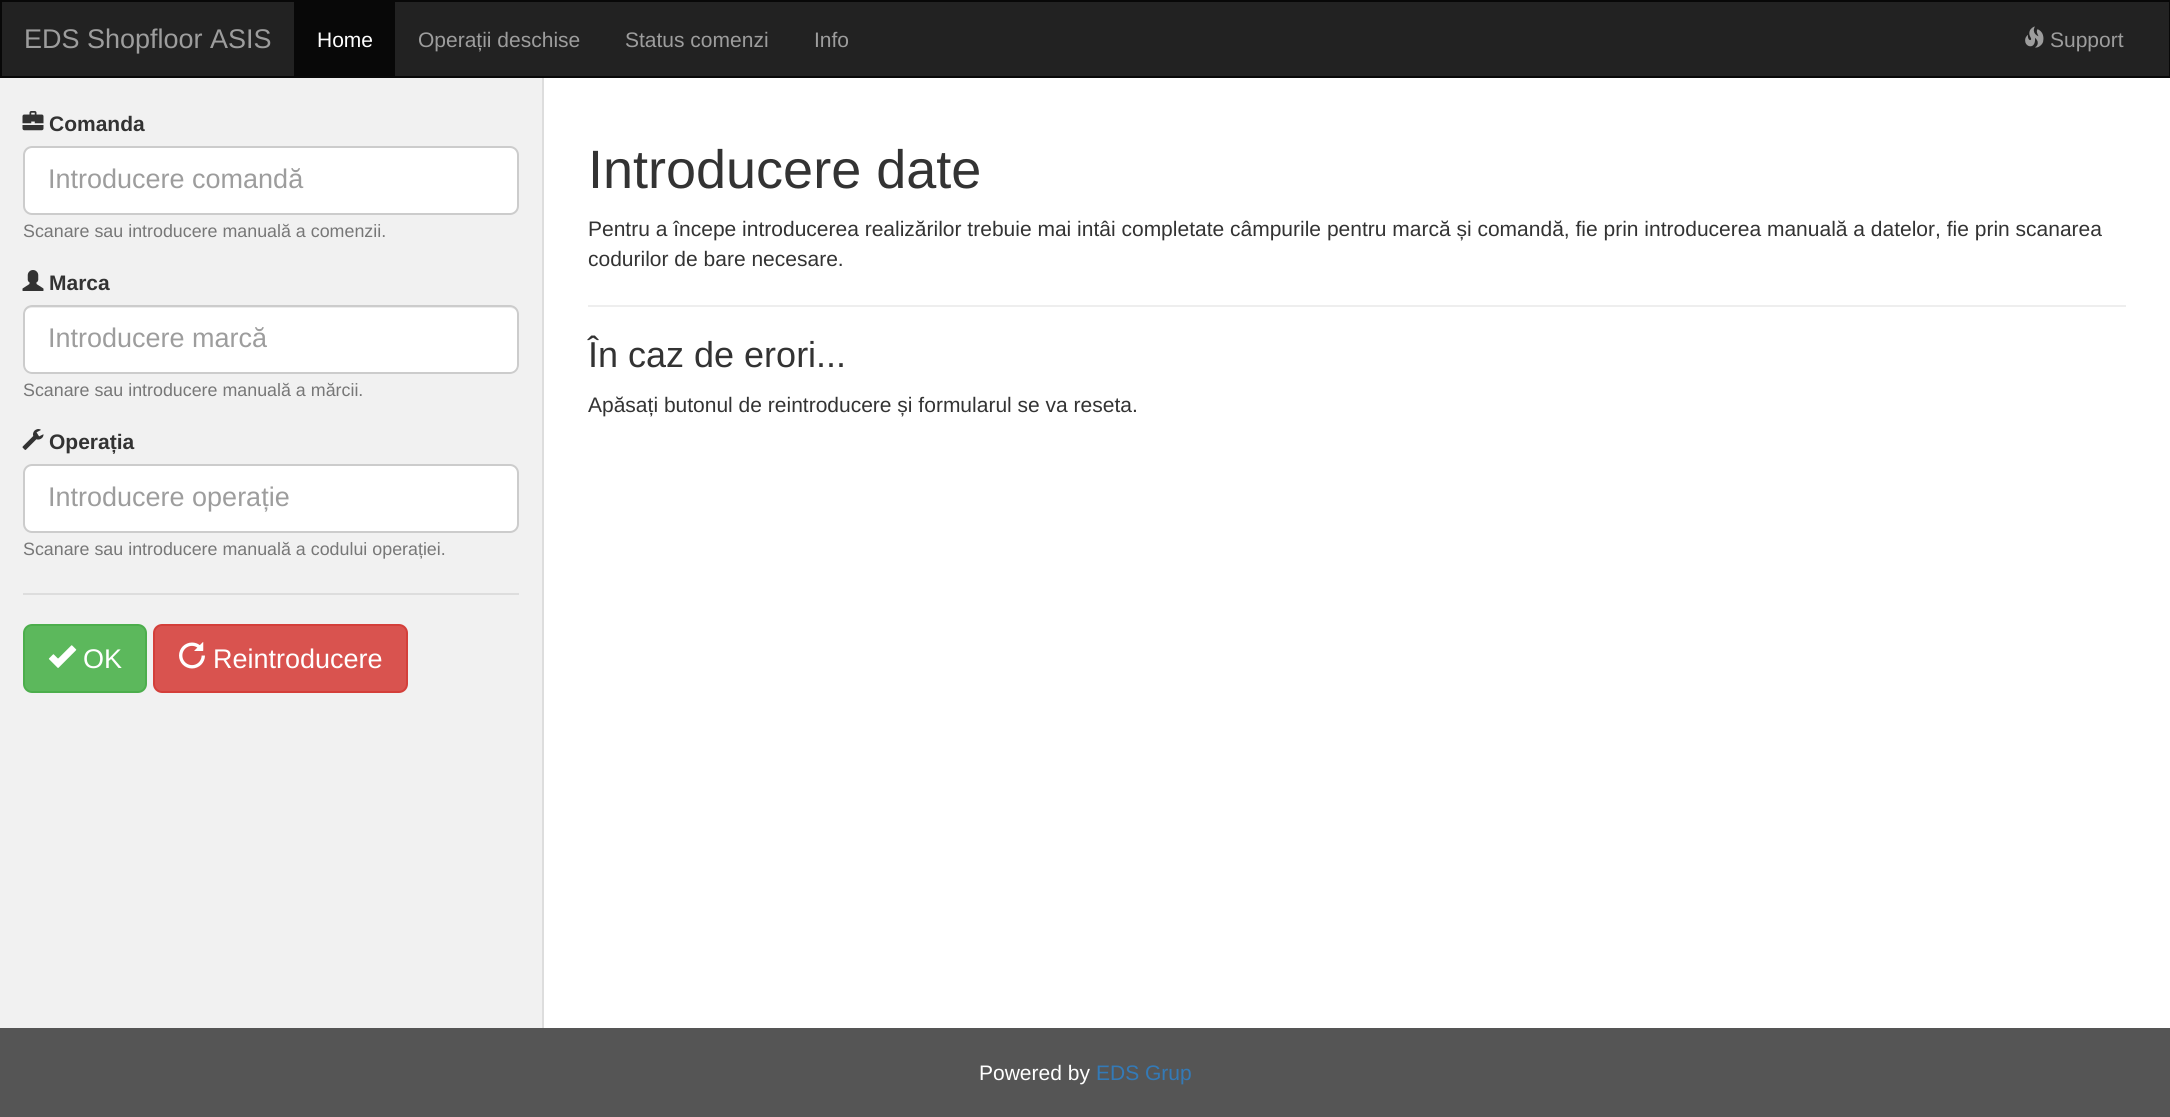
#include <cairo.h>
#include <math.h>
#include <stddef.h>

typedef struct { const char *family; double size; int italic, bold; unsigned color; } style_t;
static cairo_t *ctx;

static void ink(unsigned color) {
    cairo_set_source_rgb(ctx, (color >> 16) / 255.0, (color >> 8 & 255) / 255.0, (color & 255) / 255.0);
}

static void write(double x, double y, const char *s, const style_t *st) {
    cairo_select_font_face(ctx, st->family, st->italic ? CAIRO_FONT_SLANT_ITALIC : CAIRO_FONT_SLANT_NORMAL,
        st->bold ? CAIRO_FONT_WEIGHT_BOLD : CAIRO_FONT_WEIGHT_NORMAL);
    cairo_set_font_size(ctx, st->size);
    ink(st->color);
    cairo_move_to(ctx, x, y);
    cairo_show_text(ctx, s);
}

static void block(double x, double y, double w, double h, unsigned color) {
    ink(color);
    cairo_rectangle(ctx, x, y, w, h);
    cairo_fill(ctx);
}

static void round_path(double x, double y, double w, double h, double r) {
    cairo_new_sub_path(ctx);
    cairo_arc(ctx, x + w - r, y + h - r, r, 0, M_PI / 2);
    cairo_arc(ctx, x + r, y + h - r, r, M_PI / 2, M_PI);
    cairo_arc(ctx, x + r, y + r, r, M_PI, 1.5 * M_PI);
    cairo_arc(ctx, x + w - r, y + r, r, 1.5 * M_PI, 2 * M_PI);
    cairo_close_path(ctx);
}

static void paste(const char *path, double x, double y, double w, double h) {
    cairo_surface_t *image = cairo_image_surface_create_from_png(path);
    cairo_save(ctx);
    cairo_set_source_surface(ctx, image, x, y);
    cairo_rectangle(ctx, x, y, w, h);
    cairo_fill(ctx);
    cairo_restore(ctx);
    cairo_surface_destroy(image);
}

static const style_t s1 = {"Liberation Sans", 27, 0, 0, 0x9d9d9d};
static const style_t s2 = {"Liberation Sans", 21, 0, 0, 0xffffff};
static const style_t s3 = {"Liberation Sans", 21, 0, 0, 0x9d9d9d};
static const style_t s4 = {"Liberation Sans", 21, 0, 1, 0x333333};
static const style_t s5 = {"Liberation Sans", 17.85, 0, 0, 0x777777};
static const style_t s6 = {"Liberation Sans", 27, 0, 0, 0xffffff};
static const style_t s7 = {"Liberation Sans", 54, 0, 0, 0x333333};
static const style_t s8 = {"Liberation Sans", 21, 0, 0, 0x333333};
static const style_t s9 = {"Liberation Sans", 36, 0, 0, 0x333333};
static const style_t s10 = {"Liberation Sans", 21, 0, 0, 0x337ab7};

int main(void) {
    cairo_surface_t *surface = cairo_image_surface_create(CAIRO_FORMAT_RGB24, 2170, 1117);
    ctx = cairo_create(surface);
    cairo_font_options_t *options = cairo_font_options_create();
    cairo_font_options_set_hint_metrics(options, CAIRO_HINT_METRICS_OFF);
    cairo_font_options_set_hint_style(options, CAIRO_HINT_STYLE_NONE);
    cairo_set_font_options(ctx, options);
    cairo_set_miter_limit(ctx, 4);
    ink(0xffffff);
    cairo_paint(ctx);
    ink(0x222222);
    cairo_rectangle(ctx, 1, 1, 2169, 76);
    cairo_fill_preserve(ctx);
    ink(0x080808);
    cairo_stroke(ctx);
    write(24, 48, "EDS Shopfloor ASIS", &s1);
    block(294, 2, 101, 74, 0x080808);
    write(317, 47, "Home", &s2);
    write(418, 47, "Operații deschise", &s3);
    write(625, 47, "Status comenzi", &s3);
    write(814, 47, "Info", &s3);
    paste("pic1.png", 2025, 26, 19, 22);
    write(2050, 47, "Support", &s3);
    block(0, 78, 542, 950, 0xf1f1f1);
    block(542, 78, 2, 950, 0xdddddd);
    paste("pic2.png", 22, 111, 22, 20);
    write(49, 131, "Comanda", &s4);
    ink(0xffffff);
    round_path(24, 147, 494, 67, 8);
    cairo_fill_preserve(ctx);
    ink(0xcccccc);
    cairo_stroke(ctx);
    write(48, 188, "Introducere comandă", &s1);
    write(23, 237, "Scanare sau introducere manuală a comenzii.", &s5);
    paste("pic3.png", 22, 270, 22, 21);
    write(49, 290, "Marca", &s4);
    ink(0xffffff);
    round_path(23, 305, 496, 69, 9);
    cairo_fill(ctx);
    ink(0xececec);
    cairo_new_path(ctx);
    cairo_move_to(ctx, 32, 308);
    cairo_line_to(ctx, 510, 308);
    cairo_curve_to(ctx, 514, 308, 518, 311, 518, 315);
    cairo_line_to(ctx, 518, 314);
    cairo_curve_to(ctx, 518, 310, 514, 306, 510, 306);
    cairo_line_to(ctx, 32, 306);
    cairo_curve_to(ctx, 28, 306, 24, 310, 24, 314);
    cairo_line_to(ctx, 24, 315);
    cairo_curve_to(ctx, 24, 311, 27, 308, 32, 308);
    cairo_close_path(ctx);
    cairo_fill(ctx);
    round_path(24, 306, 494, 67, 8);
    ink(0xcccccc);
    cairo_stroke(ctx);
    write(48, 347, "Introducere marcă", &s1);
    write(23, 396, "Scanare sau introducere manuală a mărcii.", &s5);
    paste("pic4.png", 22, 429, 22, 21);
    write(49, 449, "Operația", &s4);
    ink(0xffffff);
    round_path(24, 465, 494, 67, 8);
    cairo_fill_preserve(ctx);
    ink(0xcccccc);
    cairo_stroke(ctx);
    write(48, 506, "Introducere operație", &s1);
    write(23, 555, "Scanare sau introducere manuală a codului operației.", &s5);
    block(23, 593, 496, 2, 0xdddddd);
    ink(0x5cb85c);
    round_path(24, 625, 122, 67, 8);
    cairo_fill_preserve(ctx);
    ink(0x4cae4c);
    cairo_stroke(ctx);
    paste("pic5.png", 48, 645, 29, 23);
    write(83, 668, "OK", &s6);
    ink(0xd9534f);
    round_path(154, 625, 253, 67, 8);
    cairo_fill_preserve(ctx);
    ink(0xd43f3a);
    cairo_stroke(ctx);
    paste("pic6.png", 179, 642, 26, 27);
    write(213, 668, "Reintroducere", &s6);
    write(588, 188, "Introducere date", &s7);
    write(588, 236, "Pentru a începe introducerea realizărilor trebuie mai intâi completate câmpurile pentru marcă și comandă, fie prin introducerea manuală a datelor, fie prin scanarea", &s8);
    write(588, 266, "codurilor de bare necesare.", &s8);
    block(588, 305, 1538, 2, 0xeeeeee);
    write(588, 367, "În caz de erori...", &s9);
    write(588, 412, "Apăsați butonul de reintroducere și formularul se va reseta.", &s8);
    block(0, 1028, 2170, 89, 0x555555);
    write(979, 1080, "Powered by", &s2);
    write(1096, 1080, "EDS Grup", &s10);
    cairo_surface_write_to_png(surface, "screenshot.png");
    cairo_font_options_destroy(options);
    cairo_destroy(ctx);
    cairo_surface_destroy(surface);
    return 0;
}
